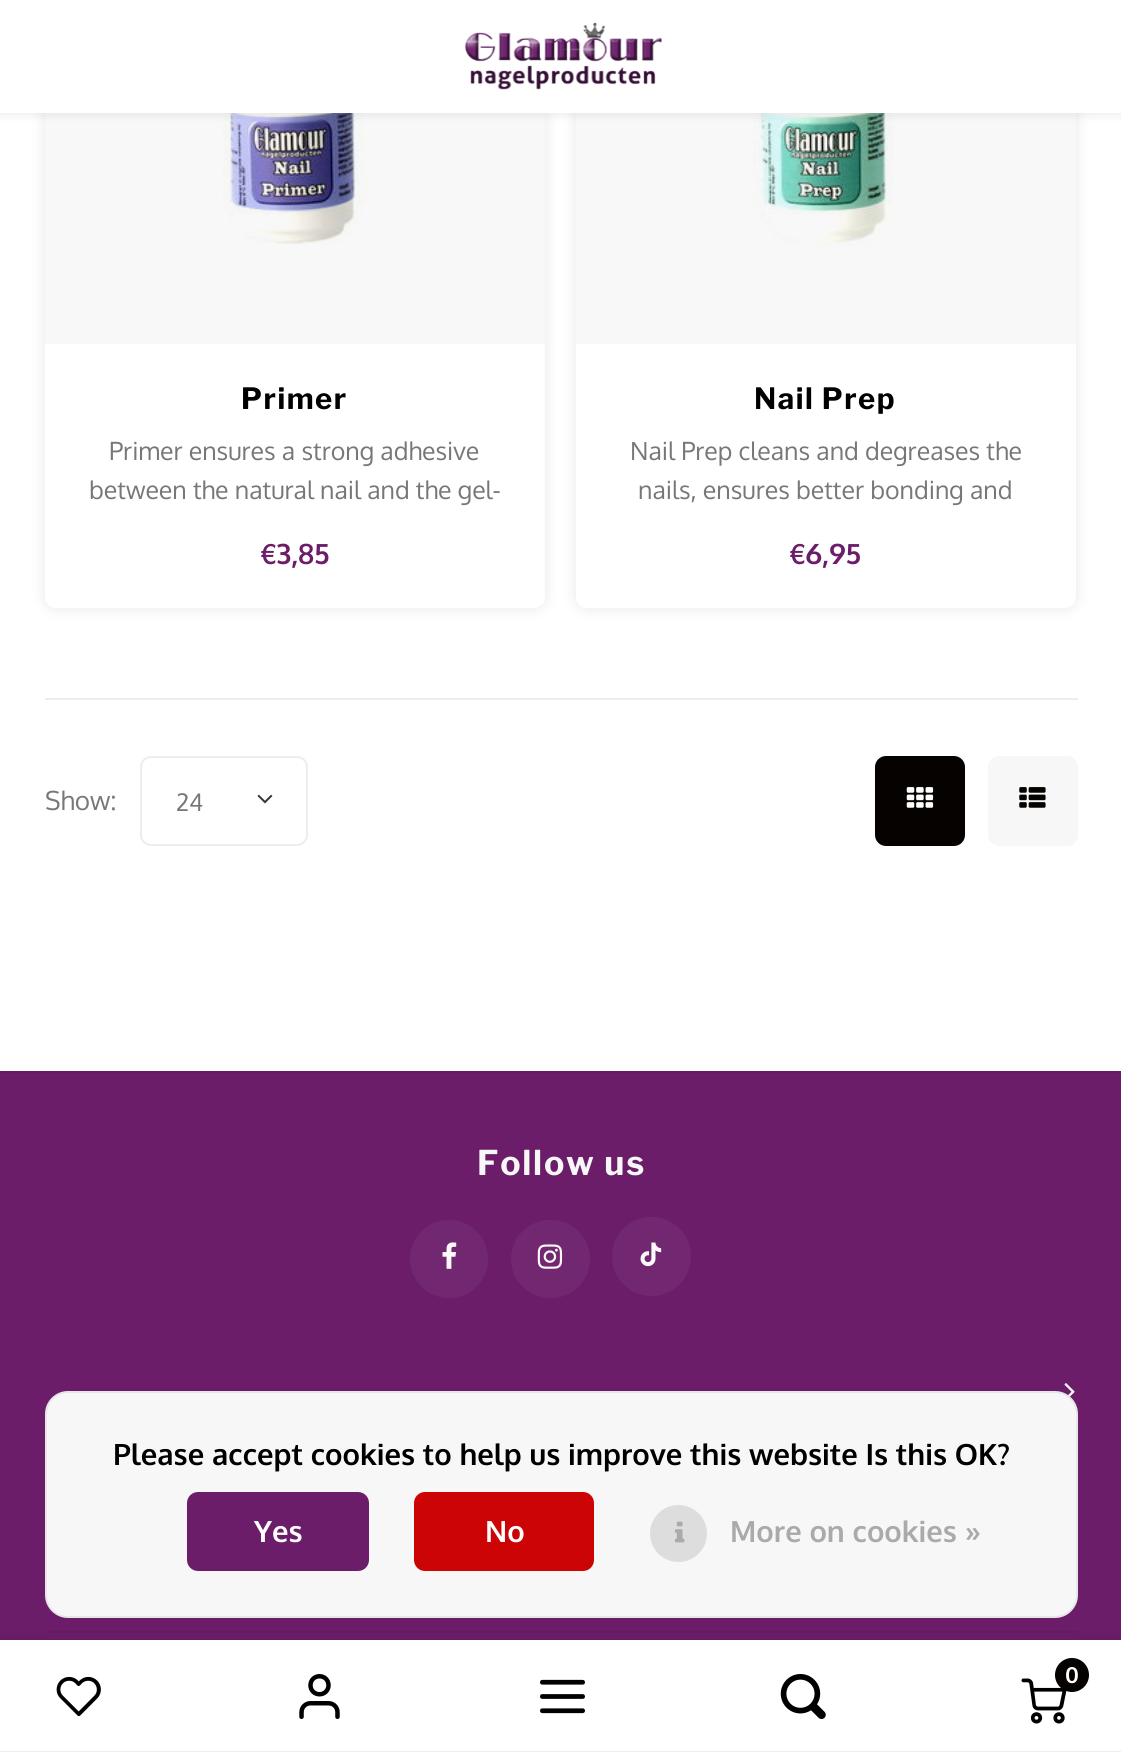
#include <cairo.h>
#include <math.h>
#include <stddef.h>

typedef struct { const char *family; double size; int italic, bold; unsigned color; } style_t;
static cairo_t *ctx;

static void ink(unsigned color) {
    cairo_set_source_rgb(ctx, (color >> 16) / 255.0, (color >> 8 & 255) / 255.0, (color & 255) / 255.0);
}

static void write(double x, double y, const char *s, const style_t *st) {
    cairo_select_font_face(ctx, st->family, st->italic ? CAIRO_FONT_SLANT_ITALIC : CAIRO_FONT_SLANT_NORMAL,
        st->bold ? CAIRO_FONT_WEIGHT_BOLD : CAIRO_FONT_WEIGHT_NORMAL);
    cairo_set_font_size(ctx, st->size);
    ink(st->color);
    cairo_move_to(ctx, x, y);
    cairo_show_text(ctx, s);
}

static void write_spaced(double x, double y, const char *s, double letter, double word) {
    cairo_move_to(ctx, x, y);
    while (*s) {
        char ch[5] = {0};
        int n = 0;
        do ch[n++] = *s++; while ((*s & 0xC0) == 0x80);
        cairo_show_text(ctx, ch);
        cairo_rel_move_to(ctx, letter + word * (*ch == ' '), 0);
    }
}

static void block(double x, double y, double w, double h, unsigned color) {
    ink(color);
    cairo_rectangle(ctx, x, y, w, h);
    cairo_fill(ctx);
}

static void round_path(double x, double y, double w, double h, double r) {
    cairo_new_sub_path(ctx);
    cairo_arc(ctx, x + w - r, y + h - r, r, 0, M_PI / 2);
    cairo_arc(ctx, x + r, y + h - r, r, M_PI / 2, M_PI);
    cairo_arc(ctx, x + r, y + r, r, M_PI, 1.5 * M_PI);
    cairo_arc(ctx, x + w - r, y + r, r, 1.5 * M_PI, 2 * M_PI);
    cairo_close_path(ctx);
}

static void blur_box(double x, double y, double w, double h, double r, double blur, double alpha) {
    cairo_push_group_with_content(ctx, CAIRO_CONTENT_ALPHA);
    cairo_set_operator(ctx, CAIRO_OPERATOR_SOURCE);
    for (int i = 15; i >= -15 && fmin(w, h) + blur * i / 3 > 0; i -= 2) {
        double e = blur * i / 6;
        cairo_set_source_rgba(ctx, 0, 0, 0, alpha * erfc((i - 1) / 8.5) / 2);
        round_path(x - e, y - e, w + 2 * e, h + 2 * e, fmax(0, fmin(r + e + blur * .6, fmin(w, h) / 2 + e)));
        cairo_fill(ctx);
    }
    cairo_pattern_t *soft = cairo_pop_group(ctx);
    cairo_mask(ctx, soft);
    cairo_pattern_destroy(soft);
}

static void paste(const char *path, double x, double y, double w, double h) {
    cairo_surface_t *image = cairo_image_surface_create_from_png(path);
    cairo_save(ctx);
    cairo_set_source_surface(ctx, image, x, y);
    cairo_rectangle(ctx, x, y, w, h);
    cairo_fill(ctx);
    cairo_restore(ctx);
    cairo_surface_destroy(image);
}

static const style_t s1 = {"Oxygen", 24.9, 0, 0, 0x777777};
static const style_t s2 = {"Oxygen", 28, 0, 1, 0x6b1d69};
static const style_t s3 = {"Oxygen", 26, 0, 0, 0x777777};
static const style_t s4 = {"Oxygen", 24, 0, 0, 0x777777};
static const style_t s5 = {"Oxygen", 29.25, 0, 1, 0x000000};
static const style_t s6 = {"Oxygen", 29.25, 0, 1, 0xffffff};
static const style_t s7 = {"Oxygen", 29.25, 0, 1, 0xaaaaaa};
static const style_t s8 = {"Oxygen", 22, 0, 1, 0xffffff};

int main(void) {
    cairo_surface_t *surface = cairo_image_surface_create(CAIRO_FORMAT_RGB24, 1121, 1752);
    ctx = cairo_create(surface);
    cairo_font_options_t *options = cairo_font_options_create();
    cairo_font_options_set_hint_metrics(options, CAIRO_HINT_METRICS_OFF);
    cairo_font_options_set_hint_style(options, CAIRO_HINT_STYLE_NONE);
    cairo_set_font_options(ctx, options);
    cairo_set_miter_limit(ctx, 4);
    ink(0xffffff);
    cairo_paint(ctx);
    ink(0x000000);
    blur_box(45, -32, 500, 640, 11, 7, 0.1);
    ink(0xffffff);
    round_path(45, -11, 500, 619, 11);
    cairo_fill(ctx);
    paste("pic2.png", 223, 113, 145, 131);
    cairo_set_source_rgba(ctx, 0, 0, 0, 0.03);
    cairo_rectangle(ctx, 45, 113, 500, 231);
    cairo_fill(ctx);
    ink(0x000000);
    blur_box(576, -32, 500, 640, 11, 7, 0.1);
    ink(0xffffff);
    round_path(576, -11, 500, 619, 11);
    cairo_fill(ctx);
    paste("pic3.png", 753, 113, 140, 133);
    cairo_set_source_rgba(ctx, 0, 0, 0, 0.03);
    cairo_rectangle(ctx, 576, 113, 500, 231);
    cairo_fill(ctx);
    ink(0x000000);
    blur_box(0, 2, 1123, 113, 0, 4.5, 0.08);
    block(0, 0, 1121, 113, 0xffffff);
    paste("pic1.png", 464, 22, 198, 68);
    cairo_select_font_face(ctx, "Libre Franklin", CAIRO_FONT_SLANT_NORMAL, CAIRO_FONT_WEIGHT_BOLD);
    cairo_set_font_size(ctx, 29.25);
    ink(0x000000);
    write_spaced(241, 409, "Primer", 1.5, 0);
    write(109, 460, "Primer ensures a strong adhesive", &s1);
    write(89, 499, "between the natural nail and the gel-", &s1);
    write(260, 564, "€3,85", &s2);
    cairo_select_font_face(ctx, "Libre Franklin", CAIRO_FONT_SLANT_NORMAL, CAIRO_FONT_WEIGHT_BOLD);
    cairo_set_font_size(ctx, 29.25);
    ink(0x000000);
    write_spaced(754, 409, "Nail Prep", 1.5, 0);
    write(630, 460, "Nail Prep cleans and degreases the", &s1);
    write(638, 499, "nails, ensures better bonding and", &s1);
    write(789, 564, "€6,95", &s2);
    block(45, 698, 1033, 2, 0xededed);
    write(45, 810, "Show:", &s3);
    round_path(141, 757, 166, 88, 10);
    ink(0xededed);
    cairo_stroke(ctx);
    write(176, 811, "24", &s4);
    paste("pic4.png", 257, 794, 16, 10);
    ink(0x060200);
    round_path(875, 756, 90, 90, 11);
    cairo_fill(ctx);
    paste("pic5.png", 906, 787, 28, 21);
    ink(0xf7f7f7);
    round_path(988, 756, 90, 90, 11);
    cairo_fill(ctx);
    paste("pic6.png", 1019, 787, 27, 21);
    block(0, 1073, 1121, 567, 0x6b1d69);
    block(0, 1071, 1121, 2, 0x641b62);
    cairo_select_font_face(ctx, "Libre Franklin", CAIRO_FONT_SLANT_NORMAL, CAIRO_FONT_WEIGHT_BOLD);
    cairo_set_font_size(ctx, 34);
    ink(0xf7f7f7);
    write_spaced(477, 1175, "Follow us", 1.75, 0);
    ink(0x722871);
    cairo_new_path(ctx);
    cairo_arc(ctx, 449, 1259, 39, 0, 2 * M_PI);
    cairo_fill(ctx);
    paste("pic7.png", 442, 1242, 15, 27);
    round_path(511, 1220, 79, 78, 39);
    cairo_fill(ctx);
    paste("pic8.png", 537, 1244, 26, 25);
    cairo_arc(ctx, 651.5, 1256.5, 39.5, 0, 2 * M_PI);
    cairo_fill(ctx);
    paste("pic9.png", 640, 1242, 22, 25);
    paste("pic10.png", 1064, 1383, 11, 14);
    block(45, 1631, 1033, 2, 0x641b62);
    ink(0xf7f7f7);
    round_path(45, 1391, 1033, 227, 23);
    cairo_fill(ctx);
    round_path(46, 1392, 1031, 225, 22);
    cairo_set_source_rgba(ctx, 0, 0, 0, 0.07);
    cairo_stroke(ctx);
    write(113, 1465, "Please accept cookies to help us improve this website Is this OK?", &s5);
    ink(0x6b1d69);
    round_path(187, 1492, 182, 79, 11);
    cairo_fill(ctx);
    write(254, 1542, "Yes", &s6);
    ink(0xcc0406);
    round_path(414, 1492, 180, 79, 11);
    cairo_fill(ctx);
    write(485, 1542, "No", &s6);
    ink(0xdddddd);
    cairo_new_path(ctx);
    cairo_arc(ctx, 678.5, 1533.5, 28.5, 0, 2 * M_PI);
    cairo_fill(ctx);
    paste("pic11.png", 675, 1521, 10, 22);
    write(730, 1542, "More on cookies »", &s7);
    ink(0x000000);
    blur_box(0, 1638, 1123, 113, 0, 5.5, 0.08);
    block(0, 1640, 1121, 111, 0xffffff);
    block(0, 1751, 1121, 1, 0xededed);
    paste("pic12.png", 56, 1676, 45, 41);
    paste("pic13.png", 299, 1674, 41, 45);
    paste("pic14.png", 540, 1679, 45, 35);
    paste("pic15.png", 780, 1674, 46, 45);
    paste("pic16.png", 1021, 1678, 46, 46);
    ink(0x060200);
    cairo_arc(ctx, 1072, 1675, 17, 0, 2 * M_PI);
    cairo_fill(ctx);
    write(1065, 1683, "0", &s8);
    cairo_surface_write_to_png(surface, "screenshot.png");
    cairo_font_options_destroy(options);
    cairo_destroy(ctx);
    cairo_surface_destroy(surface);
    return 0;
}
